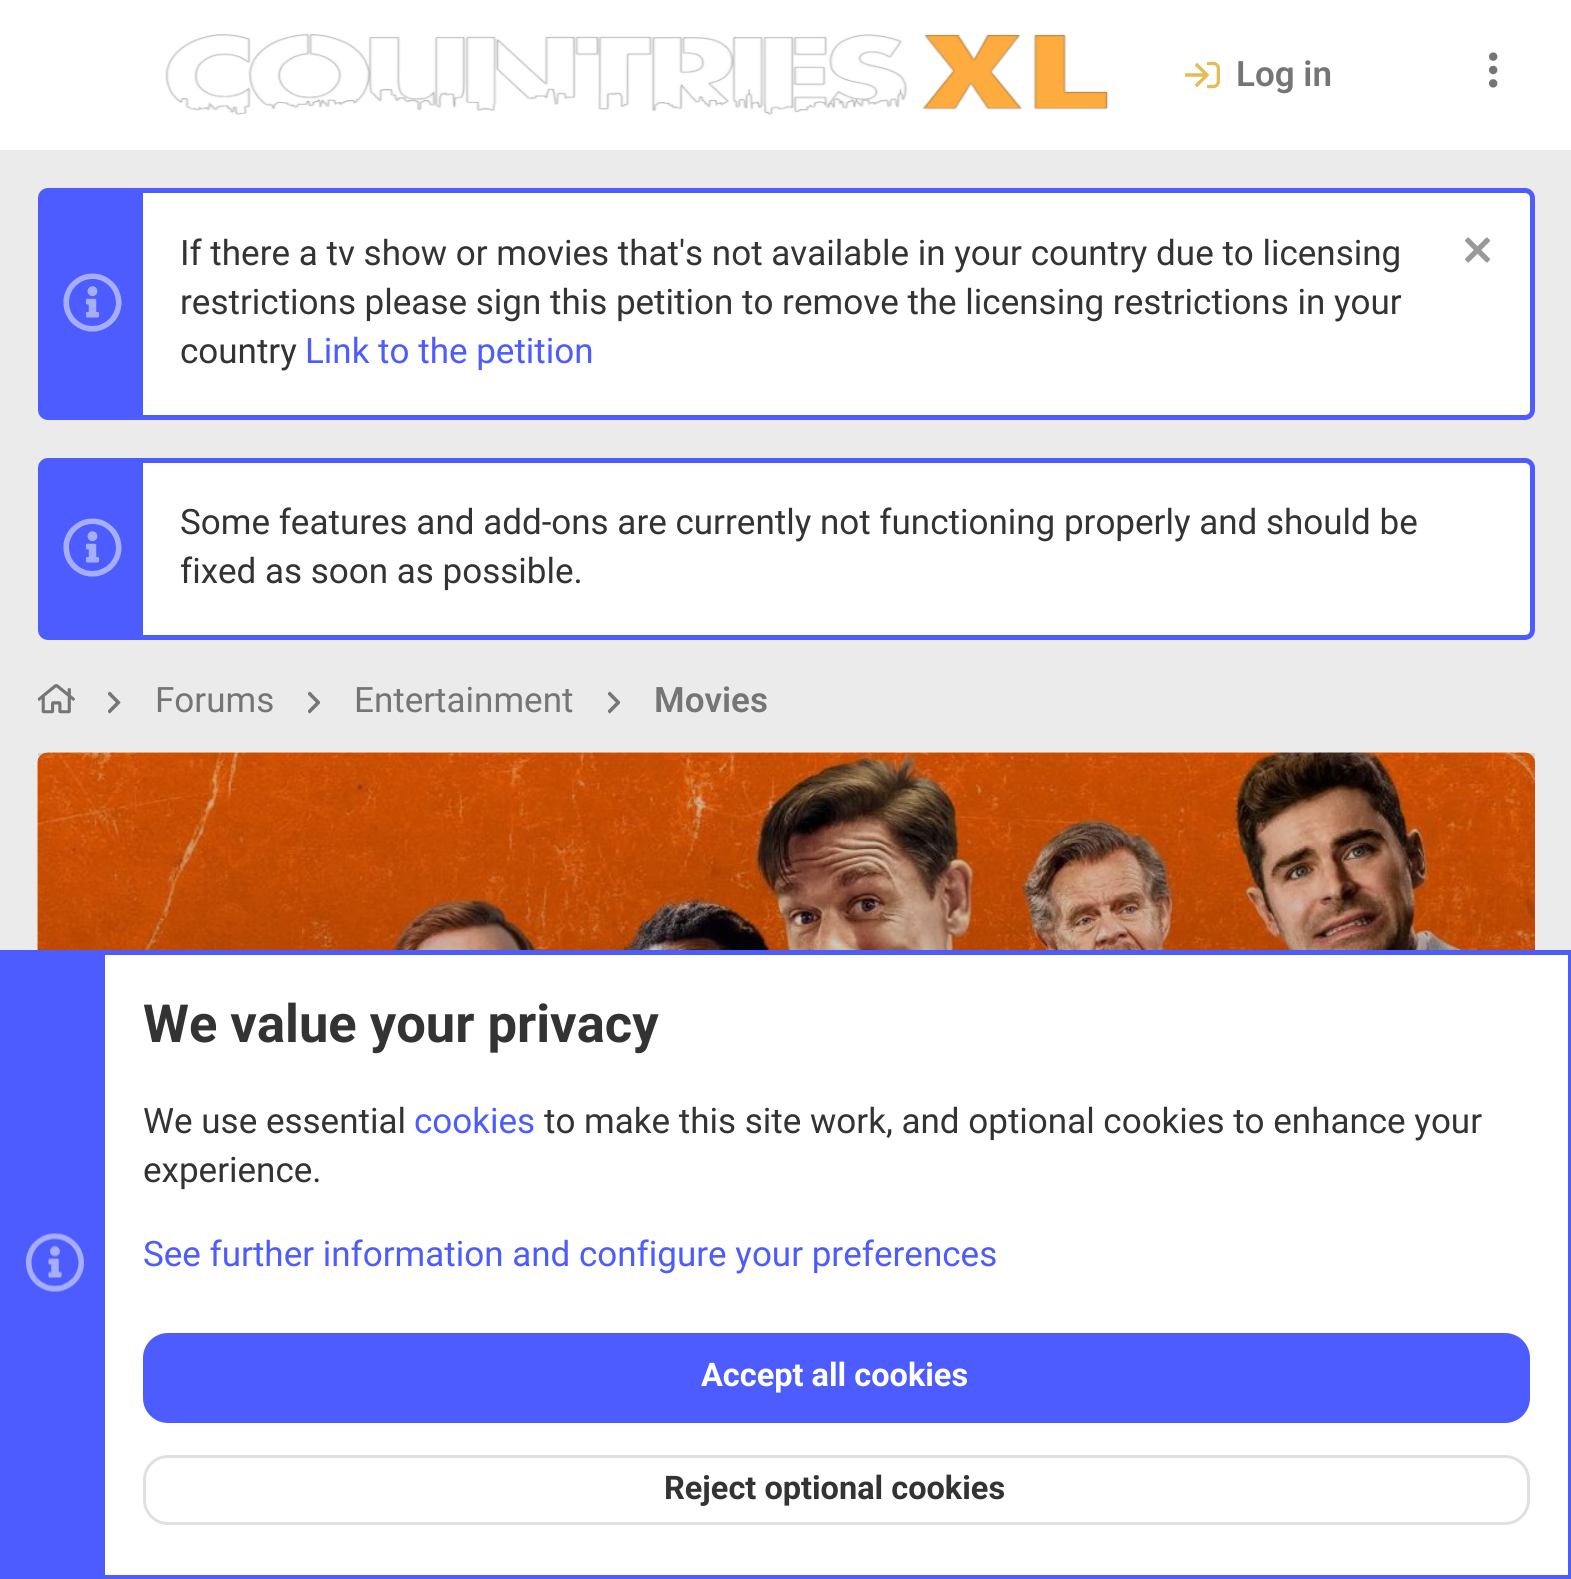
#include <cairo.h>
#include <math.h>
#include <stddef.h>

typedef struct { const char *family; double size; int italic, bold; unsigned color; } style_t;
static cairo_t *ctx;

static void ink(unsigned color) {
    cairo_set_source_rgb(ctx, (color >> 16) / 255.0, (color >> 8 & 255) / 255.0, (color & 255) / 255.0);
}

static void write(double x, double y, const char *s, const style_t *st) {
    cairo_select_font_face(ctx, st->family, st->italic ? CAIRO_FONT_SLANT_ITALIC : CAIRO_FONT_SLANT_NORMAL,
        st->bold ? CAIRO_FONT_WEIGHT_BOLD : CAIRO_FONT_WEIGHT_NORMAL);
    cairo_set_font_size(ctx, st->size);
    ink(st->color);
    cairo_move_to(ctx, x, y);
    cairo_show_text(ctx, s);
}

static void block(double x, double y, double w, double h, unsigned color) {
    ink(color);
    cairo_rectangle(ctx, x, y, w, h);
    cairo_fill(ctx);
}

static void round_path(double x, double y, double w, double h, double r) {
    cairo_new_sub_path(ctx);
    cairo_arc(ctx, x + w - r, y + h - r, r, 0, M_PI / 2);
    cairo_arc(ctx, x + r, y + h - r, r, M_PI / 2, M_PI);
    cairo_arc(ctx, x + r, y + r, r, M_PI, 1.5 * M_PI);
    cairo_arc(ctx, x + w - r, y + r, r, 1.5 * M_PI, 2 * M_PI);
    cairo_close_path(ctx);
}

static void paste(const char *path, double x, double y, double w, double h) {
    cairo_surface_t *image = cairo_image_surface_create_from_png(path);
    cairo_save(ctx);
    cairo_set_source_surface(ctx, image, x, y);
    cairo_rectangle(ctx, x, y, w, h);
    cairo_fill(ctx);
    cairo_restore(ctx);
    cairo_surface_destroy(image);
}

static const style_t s1 = {"Roboto SemiBold", 35, 0, 0, 0x757575};
static const style_t s2 = {"Roboto", 35, 0, 0, 0x333333};
static const style_t s3 = {"Roboto", 35, 0, 0, 0x4d5cfe};
static const style_t s4 = {"Roboto", 35, 0, 0, 0x757575};
static const style_t s5 = {"Roboto", 52.5, 0, 1, 0x333333};
static const style_t s6 = {"Roboto", 32.5, 0, 1, 0xffffff};
static const style_t s7 = {"Roboto", 32.5, 0, 1, 0x333333};

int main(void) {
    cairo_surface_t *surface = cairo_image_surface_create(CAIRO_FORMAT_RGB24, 1571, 1579);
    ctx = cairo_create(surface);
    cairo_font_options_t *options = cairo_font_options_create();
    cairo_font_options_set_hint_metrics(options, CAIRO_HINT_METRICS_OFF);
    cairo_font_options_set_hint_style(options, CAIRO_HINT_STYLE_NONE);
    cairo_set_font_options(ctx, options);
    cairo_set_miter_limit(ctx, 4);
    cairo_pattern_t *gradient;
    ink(0xebebeb);
    cairo_paint(ctx);
    block(0, 0, 1571, 150, 0xffffff);
    paste("pic1.png", 165, 34, 944, 81);
    paste("pic2.png", 1185, 61, 35, 28);
    write(1236, 86, "Log in", &s1);
    paste("pic3.png", 1489, 52, 9, 36);
    ink(0xffffff);
    round_path(40.5, 190.5, 1492, 227, 7.5);
    cairo_fill_preserve(ctx);
    ink(0x4d5cfe);
    cairo_set_line_width(ctx, 5);
    cairo_stroke(ctx);
    block(43, 193, 100, 222, 0x4d5cfe);
    paste("pic4.png", 63, 273, 59, 59);
    write(180, 265, "If there a tv show or movies that's not available in your country due to licensing", &s2);
    paste("pic5.png", 1465, 237, 25, 26);
    write(180, 314, "restrictions please sign this petition to remove the licensing restrictions in your", &s2);
    write(180, 363, "country", &s2);
    write(305, 363, "Link to the petition", &s3);
    ink(0xffffff);
    round_path(40.5, 460.5, 1492, 177, 7.5);
    cairo_fill_preserve(ctx);
    ink(0x4d5cfe);
    cairo_stroke(ctx);
    block(43, 463, 100, 172, 0x4d5cfe);
    paste("pic4.png", 63, 518, 59, 59);
    write(180, 534, "Some features and add-ons are currently not functioning properly and should be", &s2);
    write(180, 583, "fixed as soon as possible.", &s2);
    paste("pic6.png", 37, 684, 38, 30);
    paste("pic7.png", 108, 691, 13, 23);
    write(155, 712, "Forums", &s4);
    paste("pic8.png", 308, 691, 12, 23);
    write(354, 712, "Entertainment", &s4);
    paste("pic8.png", 608, 691, 12, 23);
    write(654, 712, "Movies", &s1);
    paste("pic9.png", 37, 752, 1498, 198);
    gradient = cairo_pattern_create_linear(786, 752, 786, 1258);
    cairo_pattern_add_color_stop_rgba(gradient, 0, 0, 0, 0, 0.1);
    cairo_pattern_add_color_stop_rgba(gradient, 0.5, 0, 0, 0, 0.2);
    cairo_pattern_add_color_stop_rgba(gradient, 1, 0, 0, 0, 0.7);
    cairo_set_source(ctx, gradient);
    cairo_pattern_destroy(gradient);
    cairo_rectangle(ctx, 38, 753, 1497, 197);
    cairo_fill(ctx);
    block(105, 955, 1463, 620, 0xffffff);
    cairo_rectangle(ctx, 2.5, 952.5, 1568, 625);
    ink(0x4d5cfe);
    cairo_stroke(ctx);
    block(5, 955, 100, 620, 0x4d5cfe);
    paste("pic10.png", 25, 1233, 59, 59);
    write(143, 1042, "We value your privacy", &s5);
    write(143, 1133, "We use essential", &s2);
    write(414, 1133, "cookies", &s3);
    write(544, 1133, "to make this site work, and optional cookies to enhance your", &s2);
    write(143, 1182, "experience.", &s2);
    write(143, 1266, "See further information and configure your preferences", &s3);
    round_path(143, 1333, 1387, 90, 25);
    cairo_fill(ctx);
    write(701, 1386, "Accept all cookies", &s6);
    round_path(144.5, 1456.5, 1384, 67, 23.5);
    ink(0xe0e0e0);
    cairo_set_line_width(ctx, 3);
    cairo_stroke(ctx);
    write(664, 1499, "Reject optional cookies", &s7);
    cairo_surface_write_to_png(surface, "screenshot.png");
    cairo_font_options_destroy(options);
    cairo_destroy(ctx);
    cairo_surface_destroy(surface);
    return 0;
}
